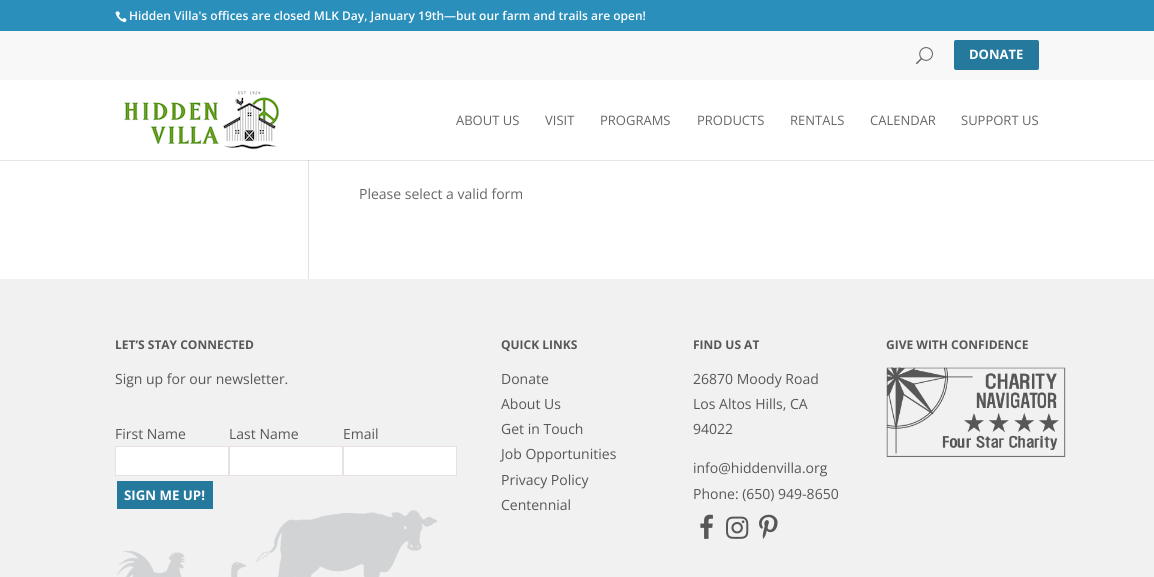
#include <cairo.h>
#include <math.h>
#include <stddef.h>

typedef struct { const char *family; double size; int italic, bold; unsigned color; } style_t;
static cairo_t *ctx;

static void ink(unsigned color) {
    cairo_set_source_rgb(ctx, (color >> 16) / 255.0, (color >> 8 & 255) / 255.0, (color & 255) / 255.0);
}

static void write(double x, double y, const char *s, const style_t *st) {
    cairo_select_font_face(ctx, st->family, st->italic ? CAIRO_FONT_SLANT_ITALIC : CAIRO_FONT_SLANT_NORMAL,
        st->bold ? CAIRO_FONT_WEIGHT_BOLD : CAIRO_FONT_WEIGHT_NORMAL);
    cairo_set_font_size(ctx, st->size);
    ink(st->color);
    cairo_move_to(ctx, x, y);
    cairo_show_text(ctx, s);
}

static void block(double x, double y, double w, double h, unsigned color) {
    ink(color);
    cairo_rectangle(ctx, x, y, w, h);
    cairo_fill(ctx);
}

static void round_path(double x, double y, double w, double h, double r) {
    cairo_new_sub_path(ctx);
    cairo_arc(ctx, x + w - r, y + h - r, r, 0, M_PI / 2);
    cairo_arc(ctx, x + r, y + h - r, r, M_PI / 2, M_PI);
    cairo_arc(ctx, x + r, y + r, r, M_PI, 1.5 * M_PI);
    cairo_arc(ctx, x + w - r, y + r, r, 1.5 * M_PI, 2 * M_PI);
    cairo_close_path(ctx);
}

static void paste(const char *path, double x, double y, double w, double h) {
    cairo_surface_t *image = cairo_image_surface_create_from_png(path);
    cairo_save(ctx);
    cairo_set_source_surface(ctx, image, x, y);
    cairo_rectangle(ctx, x, y, w, h);
    cairo_fill(ctx);
    cairo_restore(ctx);
    cairo_surface_destroy(image);
}

static const style_t s1 = {"Open Sans SemiBold", 12, 0, 0, 0xffffff};
static const style_t s2 = {"Open Sans", 13, 0, 1, 0xffffff};
static const style_t s3 = {"Open Sans", 13, 0, 0, 0x666666};
static const style_t s4 = {"Open Sans", 14, 0, 0, 0x666666};
static const style_t s5 = {"Open Sans", 12, 0, 1, 0x575757};
static const style_t s6 = {"Open Sans", 14, 0, 0, 0x575757};
static const style_t s7 = {"Open Sans", 13.25, 0, 1, 0xffffff};

int main(void) {
    cairo_surface_t *surface = cairo_image_surface_create(CAIRO_FORMAT_RGB24, 1154, 577);
    ctx = cairo_create(surface);
    cairo_font_options_t *options = cairo_font_options_create();
    cairo_font_options_set_hint_metrics(options, CAIRO_HINT_METRICS_OFF);
    cairo_font_options_set_hint_style(options, CAIRO_HINT_STYLE_NONE);
    cairo_set_font_options(ctx, options);
    cairo_set_miter_limit(ctx, 4);
    ink(0xffffff);
    cairo_paint(ctx);
    block(0, 160, 1154, 1, 0xe6e6e6);
    block(0, 0, 1154, 31, 0x2a8fba);
    paste("pic1.png", 115, 11, 12, 12);
    write(129, 20, "Hidden Villa's offices are closed MLK Day, January 19th—but our farm and trails are open!", &s1);
    block(0, 31, 1154, 49, 0xf8f8f8);
    paste("pic2.png", 916, 47, 17, 18);
    ink(0x24799d);
    round_path(954, 40, 85, 30, 2);
    cairo_fill(ctx);
    write(969, 59, "DONATE", &s2);
    paste("pic3.png", 124, 90, 155, 60);
    write(456, 125, "ABOUT US", &s3);
    write(545, 125, "VISIT", &s3);
    write(600, 125, "PROGRAMS", &s3);
    write(697, 125, "PRODUCTS", &s3);
    write(790, 125, "RENTALS", &s3);
    write(870, 125, "CALENDAR", &s3);
    write(961, 125, "SUPPORT US", &s3);
    block(308, 161, 1, 118, 0xe2e2e2);
    block(308, 160, 1, 1, 0xcbcbcb);
    write(359, 199, "Please select a valid form", &s4);
    block(0, 279, 1154, 298, 0xf1f1f1);
    write(115, 349, "LET’S STAY CONNECTED", &s5);
    write(115, 384, "Sign up for our newsletter.", &s6);
    write(115, 439, "First Name", &s6);
    ink(0xffffff);
    cairo_rectangle(ctx, 115.5, 446.5, 113, 29);
    cairo_fill_preserve(ctx);
    ink(0xe9e0e0);
    cairo_set_line_width(ctx, 1);
    cairo_stroke(ctx);
    write(229, 439, "Last Name", &s6);
    ink(0xffffff);
    cairo_rectangle(ctx, 229.5, 446.5, 113, 29);
    cairo_fill_preserve(ctx);
    ink(0xe9e0e0);
    cairo_stroke(ctx);
    write(343, 439, "Email", &s6);
    ink(0xffffff);
    cairo_rectangle(ctx, 343.5, 446.5, 113, 29);
    cairo_fill_preserve(ctx);
    ink(0xe9e0e0);
    cairo_stroke(ctx);
    block(117, 481, 96, 28, 0x24799d);
    write(124, 500, "SIGN ME UP!", &s7);
    write(501, 349, "QUICK LINKS", &s5);
    write(501, 384, "Donate", &s6);
    write(501, 409, "About Us", &s6);
    write(501, 434, "Get in Touch", &s6);
    write(501, 459, "Job Opportunities", &s6);
    write(501, 485, "Privacy Policy", &s6);
    write(501, 510, "Centennial", &s6);
    write(693, 349, "FIND US AT", &s5);
    write(693, 384, "26870 Moody Road", &s6);
    write(693, 409, "Los Altos Hills, CA", &s6);
    write(693, 434, "94022", &s6);
    write(693, 473, "info@hiddenvilla.org", &s6);
    write(693, 499, "Phone: (650) 949-8650", &s6);
    paste("pic4.png", 700, 514, 13, 25);
    paste("pic5.png", 726, 516, 23, 23);
    paste("pic6.png", 759, 514, 19, 25);
    write(886, 349, "GIVE WITH CONFIDENCE", &s5);
    paste("pic7.png", 886, 367, 180, 90);
    paste("pic8.png", 117, 510, 320, 67);
    cairo_surface_write_to_png(surface, "screenshot.png");
    cairo_font_options_destroy(options);
    cairo_destroy(ctx);
    cairo_surface_destroy(surface);
    return 0;
}
